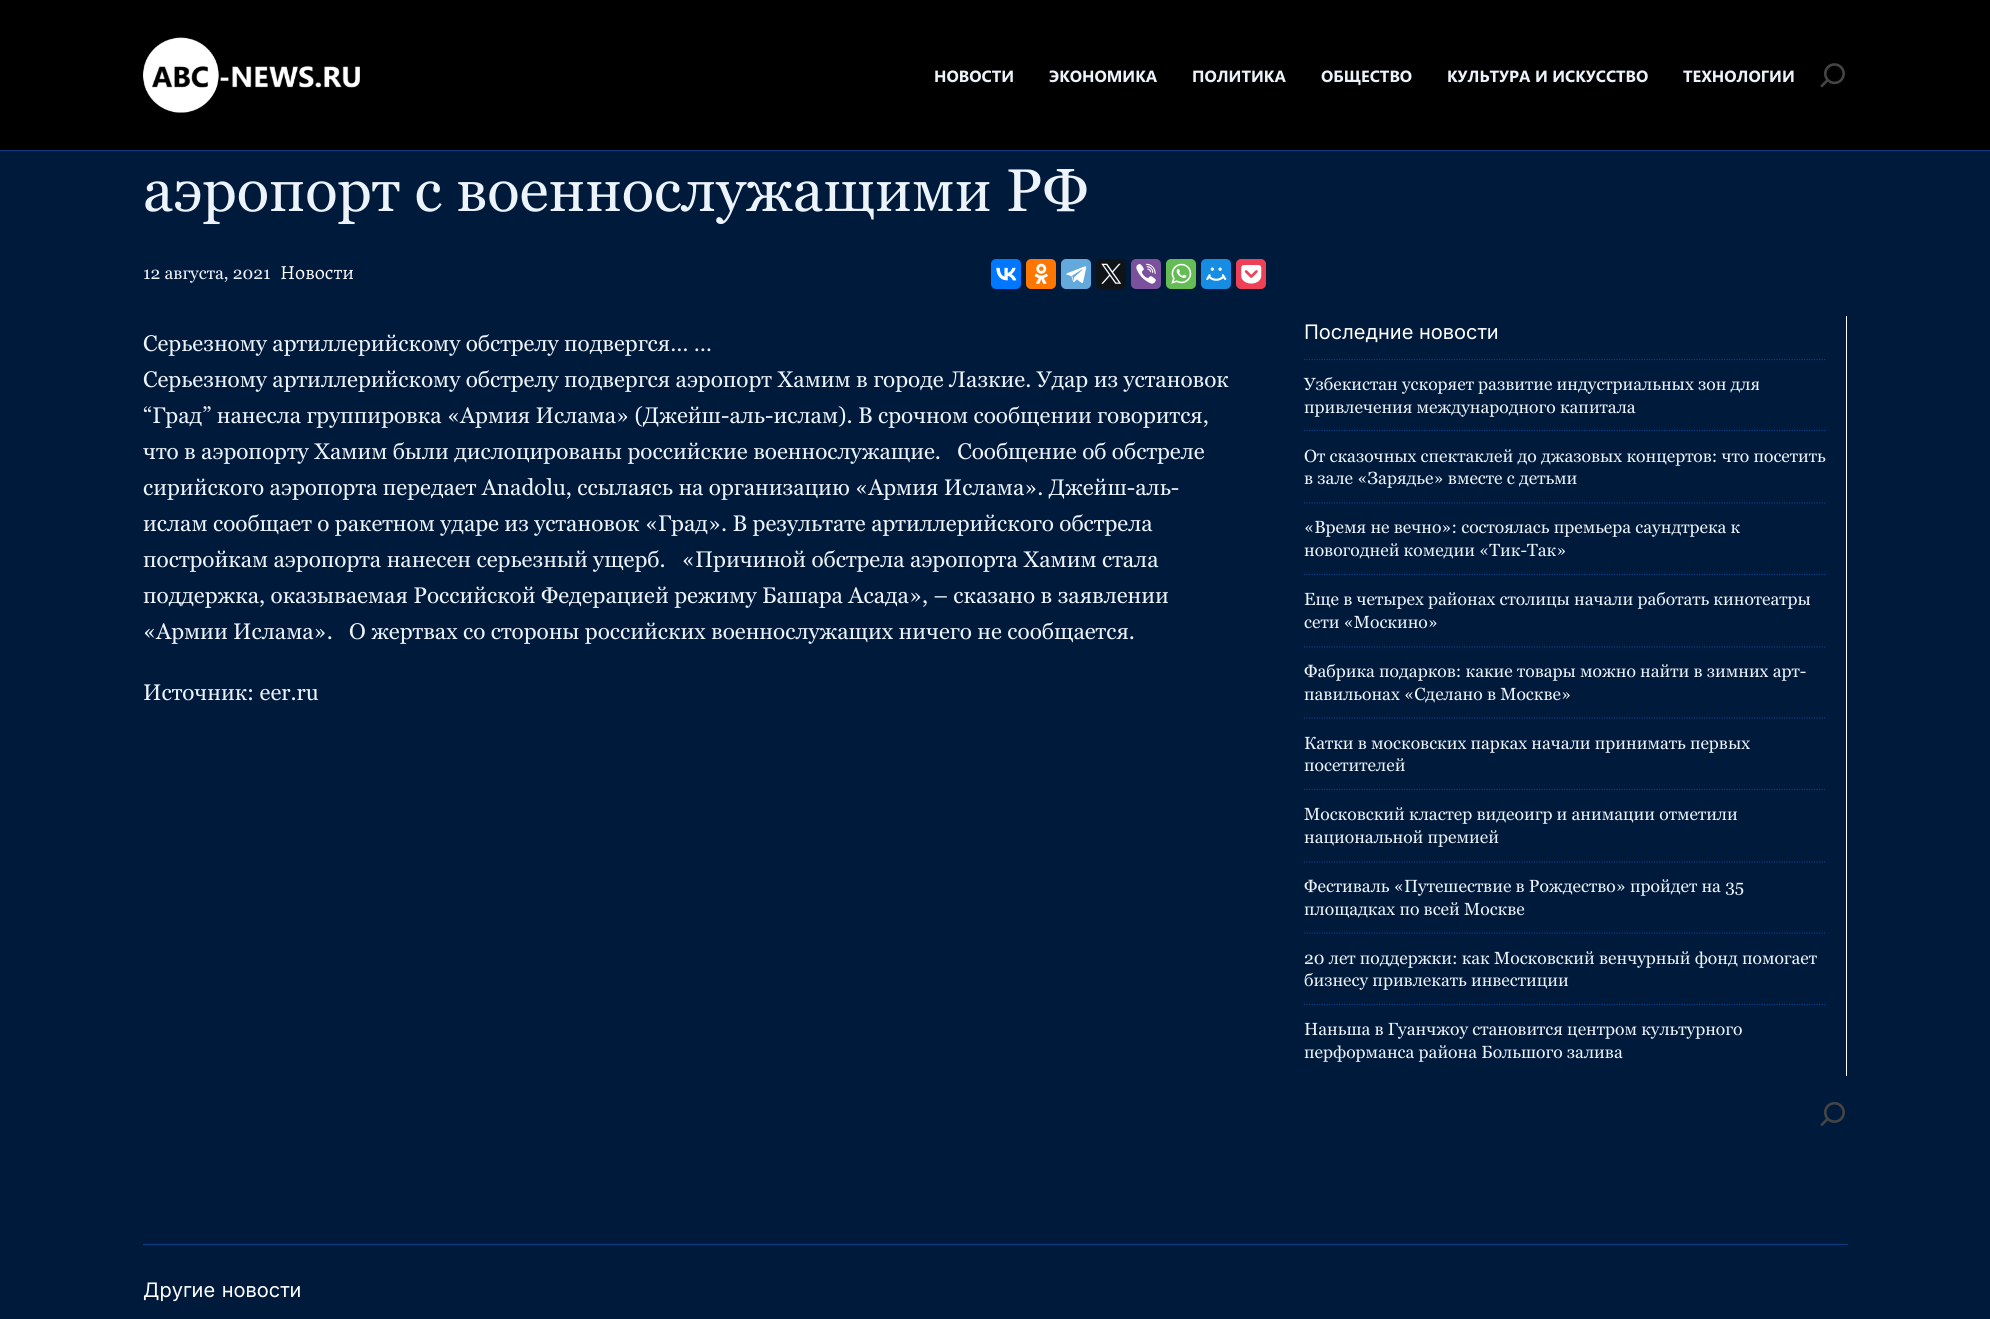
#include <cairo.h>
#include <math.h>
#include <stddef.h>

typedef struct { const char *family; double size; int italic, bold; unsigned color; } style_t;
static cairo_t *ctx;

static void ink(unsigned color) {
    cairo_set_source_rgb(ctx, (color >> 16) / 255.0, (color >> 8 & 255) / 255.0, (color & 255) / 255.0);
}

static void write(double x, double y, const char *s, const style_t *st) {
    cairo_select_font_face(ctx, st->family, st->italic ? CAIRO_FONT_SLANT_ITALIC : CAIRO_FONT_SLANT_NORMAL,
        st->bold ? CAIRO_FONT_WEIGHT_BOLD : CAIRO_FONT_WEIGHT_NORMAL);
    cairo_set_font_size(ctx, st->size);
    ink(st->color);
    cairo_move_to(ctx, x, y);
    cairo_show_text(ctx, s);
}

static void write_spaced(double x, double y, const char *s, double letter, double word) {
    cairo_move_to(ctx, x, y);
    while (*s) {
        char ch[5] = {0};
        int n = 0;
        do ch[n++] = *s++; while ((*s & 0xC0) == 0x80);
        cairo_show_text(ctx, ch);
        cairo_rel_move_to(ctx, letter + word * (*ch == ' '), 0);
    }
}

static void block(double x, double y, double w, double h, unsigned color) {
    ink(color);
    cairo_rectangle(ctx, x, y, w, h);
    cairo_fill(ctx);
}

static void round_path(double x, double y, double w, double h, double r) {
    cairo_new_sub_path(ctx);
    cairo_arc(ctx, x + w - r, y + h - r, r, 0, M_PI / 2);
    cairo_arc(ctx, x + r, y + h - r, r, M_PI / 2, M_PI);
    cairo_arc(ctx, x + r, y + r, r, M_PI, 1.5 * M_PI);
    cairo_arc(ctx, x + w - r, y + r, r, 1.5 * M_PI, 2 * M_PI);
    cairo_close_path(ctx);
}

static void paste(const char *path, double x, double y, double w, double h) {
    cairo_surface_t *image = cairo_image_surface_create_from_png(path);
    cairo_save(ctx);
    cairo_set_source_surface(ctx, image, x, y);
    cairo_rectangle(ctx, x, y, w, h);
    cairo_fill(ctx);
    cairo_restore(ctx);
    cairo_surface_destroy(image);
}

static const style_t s1 = {"Segoe UI", 16.25, 0, 1, 0xedf3fa};
static const style_t s2 = {"Georgia", 60, 0, 0, 0xedf3fa};
static const style_t s3 = {"Georgia", 17.5, 0, 0, 0xedf3fa};
static const style_t s4 = {"Alegreya", 20, 0, 0, 0xffffff};
static const style_t s5 = {"Georgia", 22.5, 0, 0, 0xedf3fa};
static const style_t s6 = {"Inter", 20, 0, 0, 0xffffff};

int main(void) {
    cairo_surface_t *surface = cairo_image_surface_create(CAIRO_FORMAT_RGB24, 1990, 1319);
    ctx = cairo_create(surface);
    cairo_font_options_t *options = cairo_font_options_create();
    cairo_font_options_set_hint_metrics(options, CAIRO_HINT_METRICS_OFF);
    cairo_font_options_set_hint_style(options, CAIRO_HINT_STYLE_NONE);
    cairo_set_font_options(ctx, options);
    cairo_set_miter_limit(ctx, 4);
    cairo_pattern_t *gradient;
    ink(0x001a3b);
    cairo_paint(ctx);
    block(0, 0, 1990, 150, 0x000000);
    block(0, 150, 1990, 1, 0x063d83);
    paste("pic1.png", 143, 37, 217, 76);
    write(934, 82, "НОВОСТИ", &s1);
    write(1049, 82, "ЭКОНОМИКА", &s1);
    write(1192, 82, "ПОЛИТИКА", &s1);
    write(1321, 82, "ОБЩЕСТВО", &s1);
    write(1447, 82, "КУЛЬТУРА И ИСКУССТВО", &s1);
    write(1683, 82, "ТЕХНОЛОГИИ", &s1);
    gradient = cairo_pattern_create_linear(1793, 74, 1818, 74);
    cairo_pattern_add_color_stop_rgba(gradient, 0, 0, 0, 0, 0);
    cairo_pattern_add_color_stop_rgba(gradient, 0.79, 0, 0, 0, 1);
    cairo_set_source(ctx, gradient);
    cairo_pattern_destroy(gradient);
    cairo_rectangle(ctx, 1793, 71, 1, 11);
    cairo_fill(ctx);
    paste("pic2.png", 1820, 63, 25, 25);
    write(143, 211, "аэропорт с военнослужащими РФ", &s2);
    write(143, 279, "12 августа, 2021", &s3);
    write(280, 279, "Новости", &s4);
    ink(0x0077ff);
    round_path(991, 259, 30, 30, 5);
    cairo_fill(ctx);
    paste("pic3.png", 996, 267, 21, 14);
    ink(0xff7700);
    round_path(1026, 259, 30, 30, 5);
    cairo_fill(ctx);
    paste("pic4.png", 1034, 263, 14, 21);
    ink(0x64a9dc);
    round_path(1061, 259, 30, 30, 5);
    cairo_fill(ctx);
    paste("pic5.png", 1066, 266, 21, 17);
    ink(0x0f1419);
    round_path(1096, 259, 30, 30, 5);
    cairo_fill(ctx);
    paste("pic6.png", 1101, 263, 21, 21);
    ink(0x7b519d);
    round_path(1131, 259, 30, 30, 5);
    cairo_fill(ctx);
    paste("pic7.png", 1136, 263, 20, 21);
    ink(0x65bc54);
    round_path(1166, 259, 30, 30, 5);
    cairo_fill(ctx);
    paste("pic8.png", 1171, 263, 21, 21);
    ink(0x168de2);
    round_path(1201, 259, 30, 30, 5);
    cairo_fill(ctx);
    paste("pic9.png", 1206, 267, 21, 14);
    ink(0xee4056);
    round_path(1236, 259, 30, 30, 5);
    cairo_fill(ctx);
    paste("pic10.png", 1241, 265, 21, 19);
    write(143, 351, "Серьезному артиллерийскому обстрелу подвергся… …", &s5);
    write(143, 387, "Серьезному артиллерийскому обстрелу подвергся аэропорт Хамим в городе Лазкие. Удар из установок", &s5);
    write(143, 423, "“Град” нанесла группировка «Армия Ислама» (Джейш-аль-ислам). В срочном сообщении говорится,", &s5);
    write(143, 459, "что в аэропорту Хамим были дислоцированы российские военнослужащие.   Сообщение об обстреле", &s5);
    write(143, 495, "сирийского аэропорта передает Anadolu, ссылаясь на организацию «Армия Ислама». Джейш-аль-", &s5);
    write(143, 531, "ислам сообщает о ракетном ударе из установок «Град». В результате артиллерийского обстрела", &s5);
    write(143, 567, "постройкам аэропорта нанесен серьезный ущерб.   «Причиной обстрела аэропорта Хамим стала", &s5);
    write(143, 603, "поддержка, оказываемая Российской Федерацией режиму Башара Асада», – сказано в заявлении", &s5);
    write(143, 639, "«Армии Ислама».   О жертвах со стороны российских военнослужащих ничего не сообщается.", &s5);
    write(143, 700, "Источник: eer.ru", &s5);
    block(1846, 316, 1, 760, 0xffffff);
    write(1304, 339, "Последние новости", &s6);
    cairo_new_path(ctx);
    cairo_move_to(ctx, 1304, 359.5);
    cairo_line_to(ctx, 1826, 359.5);
    ink(0x073d83);
    cairo_set_line_width(ctx, 1.2);
    cairo_set_dash(ctx, (double[]){1.25, 1.25}, 2, 0);
    cairo_stroke(ctx);
    cairo_new_path(ctx);
    cairo_move_to(ctx, 1304, 430.5);
    cairo_line_to(ctx, 1826, 430.5);
    cairo_stroke(ctx);
    write(1304, 390, "Узбекистан ускоряет развитие индустриальных зон для", &s3);
    write(1304, 413, "привлечения международного капитала", &s3);
    cairo_new_path(ctx);
    cairo_move_to(ctx, 1304, 503);
    cairo_line_to(ctx, 1826, 503);
    ink(0x073d83);
    cairo_stroke(ctx);
    write(1304, 462, "От сказочных спектаклей до джазовых концертов: что посетить", &s3);
    write(1304, 484, "в зале «Зарядье» вместе с детьми", &s3);
    cairo_new_path(ctx);
    cairo_move_to(ctx, 1304, 574.5);
    cairo_line_to(ctx, 1826, 574.5);
    ink(0x073d83);
    cairo_stroke(ctx);
    write(1304, 533, "«Время не вечно»: состоялась премьера саундтрека к", &s3);
    write(1304, 556, "новогодней комедии «Тик-Так»", &s3);
    cairo_new_path(ctx);
    cairo_move_to(ctx, 1304, 647);
    cairo_line_to(ctx, 1826, 647);
    ink(0x073d83);
    cairo_stroke(ctx);
    write(1304, 605, "Еще в четырех районах столицы начали работать кинотеатры", &s3);
    write(1304, 628, "сети «Москино»", &s3);
    cairo_new_path(ctx);
    cairo_move_to(ctx, 1304, 718);
    cairo_line_to(ctx, 1826, 718);
    ink(0x073d83);
    cairo_stroke(ctx);
    write(1304, 677, "Фабрика подарков: какие товары можно найти в зимних арт-", &s3);
    write(1304, 700, "павильонах «Сделано в Москве»", &s3);
    cairo_new_path(ctx);
    cairo_move_to(ctx, 1304, 789.5);
    cairo_line_to(ctx, 1826, 789.5);
    ink(0x073d83);
    cairo_stroke(ctx);
    write(1304, 749, "Катки в московских парках начали принимать первых", &s3);
    write(1304, 771, "посетителей", &s3);
    cairo_new_path(ctx);
    cairo_move_to(ctx, 1304, 862);
    cairo_line_to(ctx, 1826, 862);
    ink(0x073d83);
    cairo_stroke(ctx);
    write(1304, 820, "Московский кластер видеоигр и анимации отметили", &s3);
    write(1304, 843, "национальной премией", &s3);
    cairo_new_path(ctx);
    cairo_move_to(ctx, 1304, 933);
    cairo_line_to(ctx, 1826, 933);
    ink(0x073d83);
    cairo_stroke(ctx);
    write(1304, 892, "Фестиваль «Путешествие в Рождество» пройдет на 35", &s3);
    write(1304, 915, "площадках по всей Москве", &s3);
    cairo_new_path(ctx);
    cairo_move_to(ctx, 1304, 1004.5);
    cairo_line_to(ctx, 1826, 1004.5);
    ink(0x073d83);
    cairo_stroke(ctx);
    write(1304, 964, "20 лет поддержки: как Московский венчурный фонд помогает", &s3);
    write(1304, 986, "бизнесу привлекать инвестиции", &s3);
    write(1304, 1035, "Наньша в Гуанчжоу становится центром культурного", &s3);
    write(1304, 1058, "перформанса района Большого залива", &s3);
    paste("pic11.png", 1820, 1101, 25, 25);
    block(143, 1244, 1705, 1, 0x073d83);
    cairo_select_font_face(ctx, "Inter", CAIRO_FONT_SLANT_NORMAL, CAIRO_FONT_WEIGHT_NORMAL);
    cairo_set_font_size(ctx, 20);
    ink(0xffffff);
    write_spaced(143, 1297, "Другие новости", 0, 1);
    cairo_surface_write_to_png(surface, "screenshot.png");
    cairo_font_options_destroy(options);
    cairo_destroy(ctx);
    cairo_surface_destroy(surface);
    return 0;
}
